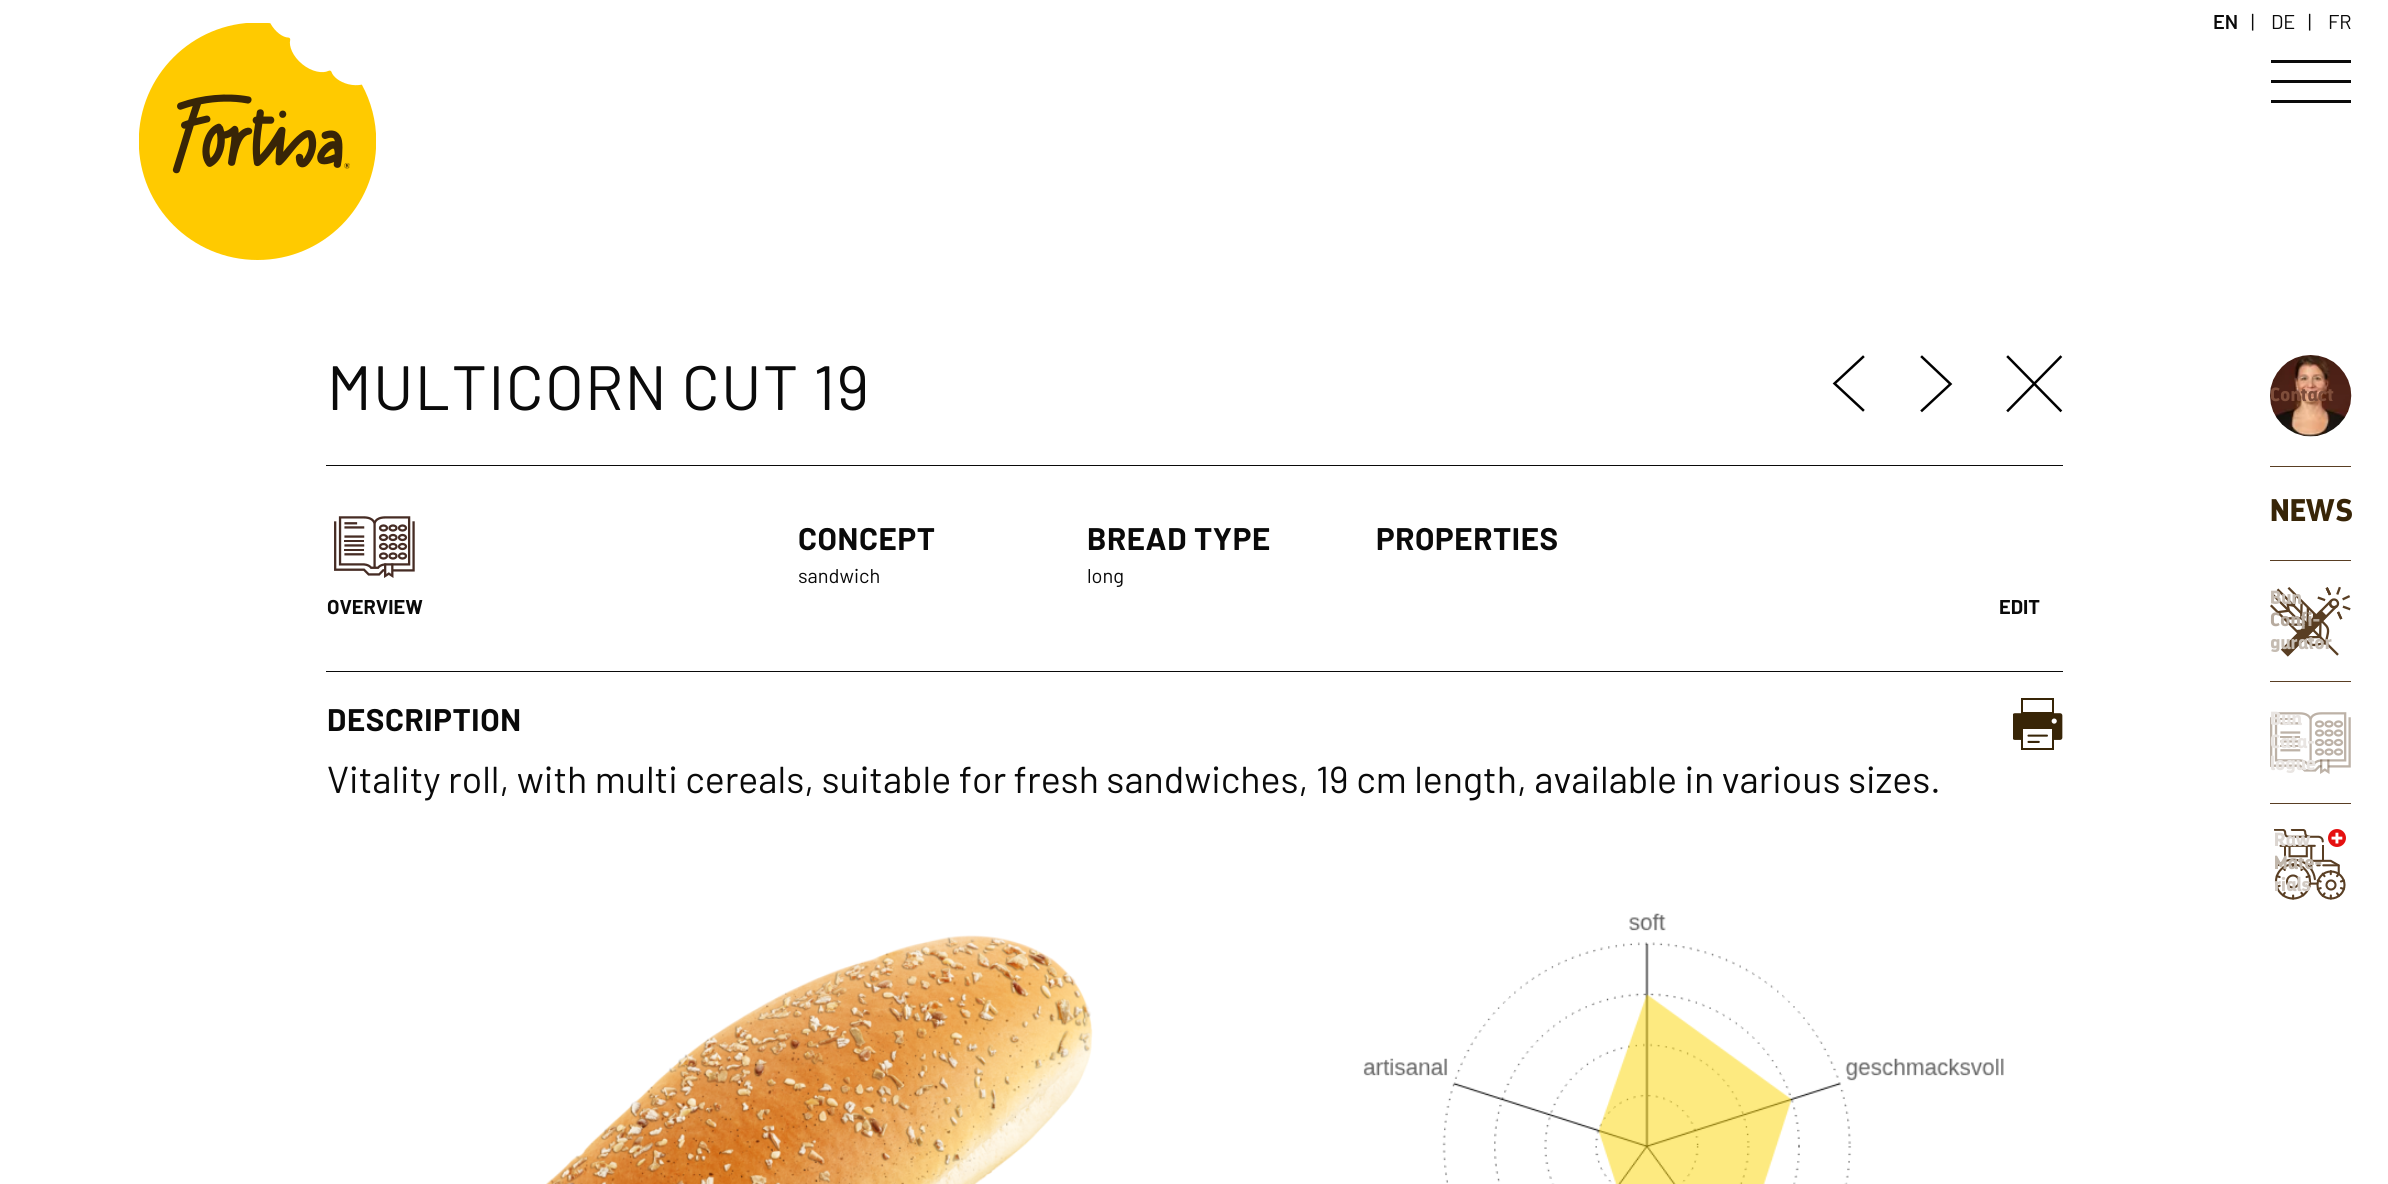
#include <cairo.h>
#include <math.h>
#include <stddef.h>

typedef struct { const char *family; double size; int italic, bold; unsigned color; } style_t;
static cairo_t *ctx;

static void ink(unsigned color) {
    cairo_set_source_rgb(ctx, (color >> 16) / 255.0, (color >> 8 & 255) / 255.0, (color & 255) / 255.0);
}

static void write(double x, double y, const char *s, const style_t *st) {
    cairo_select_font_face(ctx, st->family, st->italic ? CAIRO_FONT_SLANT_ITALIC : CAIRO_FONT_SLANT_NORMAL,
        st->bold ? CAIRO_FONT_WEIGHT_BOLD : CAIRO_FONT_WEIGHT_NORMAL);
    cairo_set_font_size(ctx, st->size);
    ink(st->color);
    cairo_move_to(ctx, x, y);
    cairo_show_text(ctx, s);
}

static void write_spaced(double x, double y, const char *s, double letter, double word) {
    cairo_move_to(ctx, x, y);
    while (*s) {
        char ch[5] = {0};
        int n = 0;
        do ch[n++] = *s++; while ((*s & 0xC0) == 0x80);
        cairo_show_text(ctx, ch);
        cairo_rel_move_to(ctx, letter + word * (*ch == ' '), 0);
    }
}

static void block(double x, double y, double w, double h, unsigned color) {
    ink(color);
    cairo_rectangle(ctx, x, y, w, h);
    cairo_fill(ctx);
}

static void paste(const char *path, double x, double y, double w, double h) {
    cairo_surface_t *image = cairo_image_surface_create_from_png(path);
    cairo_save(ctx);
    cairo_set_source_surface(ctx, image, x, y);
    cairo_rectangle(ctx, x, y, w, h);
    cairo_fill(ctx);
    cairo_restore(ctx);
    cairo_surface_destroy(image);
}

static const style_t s1 = {"Barlow", 20, 0, 0, 0x0a0a0a};
static const style_t s2 = {"Barlow", 20, 0, 1, 0x0a0a0a};
static const style_t s3 = {"Barlow", 37.5, 0, 0, 0x0a0a0a};
static const style_t s4 = {"Barlow SemiBold", 20, 0, 0, 0x0a0a0a};
static const style_t s5 = {"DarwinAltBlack", 19, 0, 0, 0x7e4d3a};
static const style_t s6 = {"DarwinAltBlack", 31.25, 0, 0, 0x382507};
static const style_t s7 = {"DarwinAltBlack", 19, 0, 0, 0xc5bcb2};
static const style_t s8 = {"DarwinAltBlack", 19, 0, 0, 0xb7ab9f};
static const style_t s9 = {"DarwinAltBlack", 19, 0, 0, 0xe9e5e2};
static const style_t s10 = {"DarwinAltBlack", 19, 0, 0, 0xdcd6d1};
static const style_t s11 = {"DarwinAltBlack", 19, 0, 0, 0xc0b6ab};
static const style_t s12 = {"DarwinAltBlack", 19, 0, 0, 0xd2cac3};

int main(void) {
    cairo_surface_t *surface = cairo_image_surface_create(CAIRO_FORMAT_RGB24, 2388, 1184);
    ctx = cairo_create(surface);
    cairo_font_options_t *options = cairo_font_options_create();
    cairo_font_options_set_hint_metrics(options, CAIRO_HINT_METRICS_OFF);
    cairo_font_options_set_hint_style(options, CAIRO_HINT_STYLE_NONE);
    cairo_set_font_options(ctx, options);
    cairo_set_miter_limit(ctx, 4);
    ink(0xffffff);
    cairo_paint(ctx);
    cairo_select_font_face(ctx, "Barlow", CAIRO_FONT_SLANT_NORMAL, CAIRO_FONT_WEIGHT_NORMAL);
    cairo_set_font_size(ctx, 62.5);
    ink(0x0a0a0a);
    write_spaced(327, 410, "MULTICORN CUT 19", 1.25, 0);
    cairo_new_path(ctx);
    cairo_move_to(ctx, 1863, 410);
    cairo_line_to(ctx, 1834.5, 383.5);
    cairo_line_to(ctx, 1863, 357);
    ink(0x000000);
    cairo_set_line_width(ctx, 2.5);
    cairo_set_line_cap(ctx, CAIRO_LINE_CAP_SQUARE);
    cairo_stroke(ctx);
    cairo_new_path(ctx);
    cairo_move_to(ctx, 1922, 410.5);
    cairo_line_to(ctx, 1950.5, 384);
    cairo_line_to(ctx, 1922, 357);
    cairo_stroke(ctx);
    cairo_new_path(ctx);
    cairo_move_to(ctx, 2008, 410.5);
    cairo_line_to(ctx, 2060.5, 357);
    cairo_move_to(ctx, 2060.5, 410.5);
    cairo_line_to(ctx, 2008, 357);
    cairo_stroke(ctx);
    block(326, 465, 1737, 1, 0x0a0a0a);
    block(326, 671, 1737, 1, 0x0a0a0a);
    cairo_select_font_face(ctx, "Barlow", CAIRO_FONT_SLANT_NORMAL, CAIRO_FONT_WEIGHT_BOLD);
    cairo_set_font_size(ctx, 31.25);
    write_spaced(798, 550, "CONCEPT", 0.6, 0);
    write(798, 583, "sandwich", &s1);
    cairo_select_font_face(ctx, "Barlow", CAIRO_FONT_SLANT_NORMAL, CAIRO_FONT_WEIGHT_BOLD);
    cairo_set_font_size(ctx, 31.25);
    write_spaced(1087, 550, "BREAD TYPE", 0.6, 0);
    write(1087, 583, "long", &s1);
    cairo_select_font_face(ctx, "Barlow", CAIRO_FONT_SLANT_NORMAL, CAIRO_FONT_WEIGHT_BOLD);
    cairo_set_font_size(ctx, 31.25);
    write_spaced(1376, 550, "PROPERTIES", 0.6, 0);
    paste("pic1.png", 334, 516, 81, 62);
    write(327, 614, "OVERVIEW", &s2);
    write(1999, 614, "EDIT", &s2);
    cairo_set_font_size(ctx, 31.25);
    write_spaced(327, 731, "DESCRIPTION", 0.6, 0);
    paste("pic2.png", 2013, 698, 50, 52);
    write(327, 793, "Vitality roll, with multi cereals, suitable for fresh sandwiches, 19 cm length, available in various sizes.", &s3);
    paste("pic3.png", 546, 935, 547, 249);
    paste("pic4.png", 1363, 913, 641, 271);
    paste("pic5.png", 139, 23, 237, 237);
    write(2213, 29, "EN", &s4);
    write(2251, 29, "|", &s1);
    write(2271, 29, "DE", &s1);
    write(2308, 29, "|", &s1);
    write(2328, 29, "FR", &s1);
    block(2271, 60, 80, 3, 0x0a0a0a);
    block(2271, 80, 80, 3, 0x0a0a0a);
    block(2271, 100, 80, 3, 0x0a0a0a);
    paste("pic6.png", 2270, 355, 82, 82);
    write(2270, 401, "Contact", &s5);
    block(2270, 466, 81, 1, 0x593e23);
    write(2270, 521, "NEWS", &s6);
    block(2270, 560, 81, 1, 0x593e23);
    paste("pic7.png", 2270, 586, 81, 71);
    write(2270, 604, "Bun", &s7);
    write(2270, 626, "Confi-", &s8);
    write(2270, 649, "gurator", &s7);
    block(2270, 681, 81, 1, 0x593e23);
    paste("pic8.png", 2270, 712, 81, 62);
    write(2270, 725, "Bun", &s9);
    write(2270, 748, "Cata-", &s9);
    write(2270, 770, "logue", &s9);
    block(2270, 803, 81, 1, 0x593e23);
    paste("pic9.png", 2274, 829, 72, 71);
    write(2274, 846, "Raw", &s10);
    write(2274, 869, "Mate-", &s11);
    write(2274, 891, "rials", &s12);
    cairo_surface_write_to_png(surface, "screenshot.png");
    cairo_font_options_destroy(options);
    cairo_destroy(ctx);
    cairo_surface_destroy(surface);
    return 0;
}
